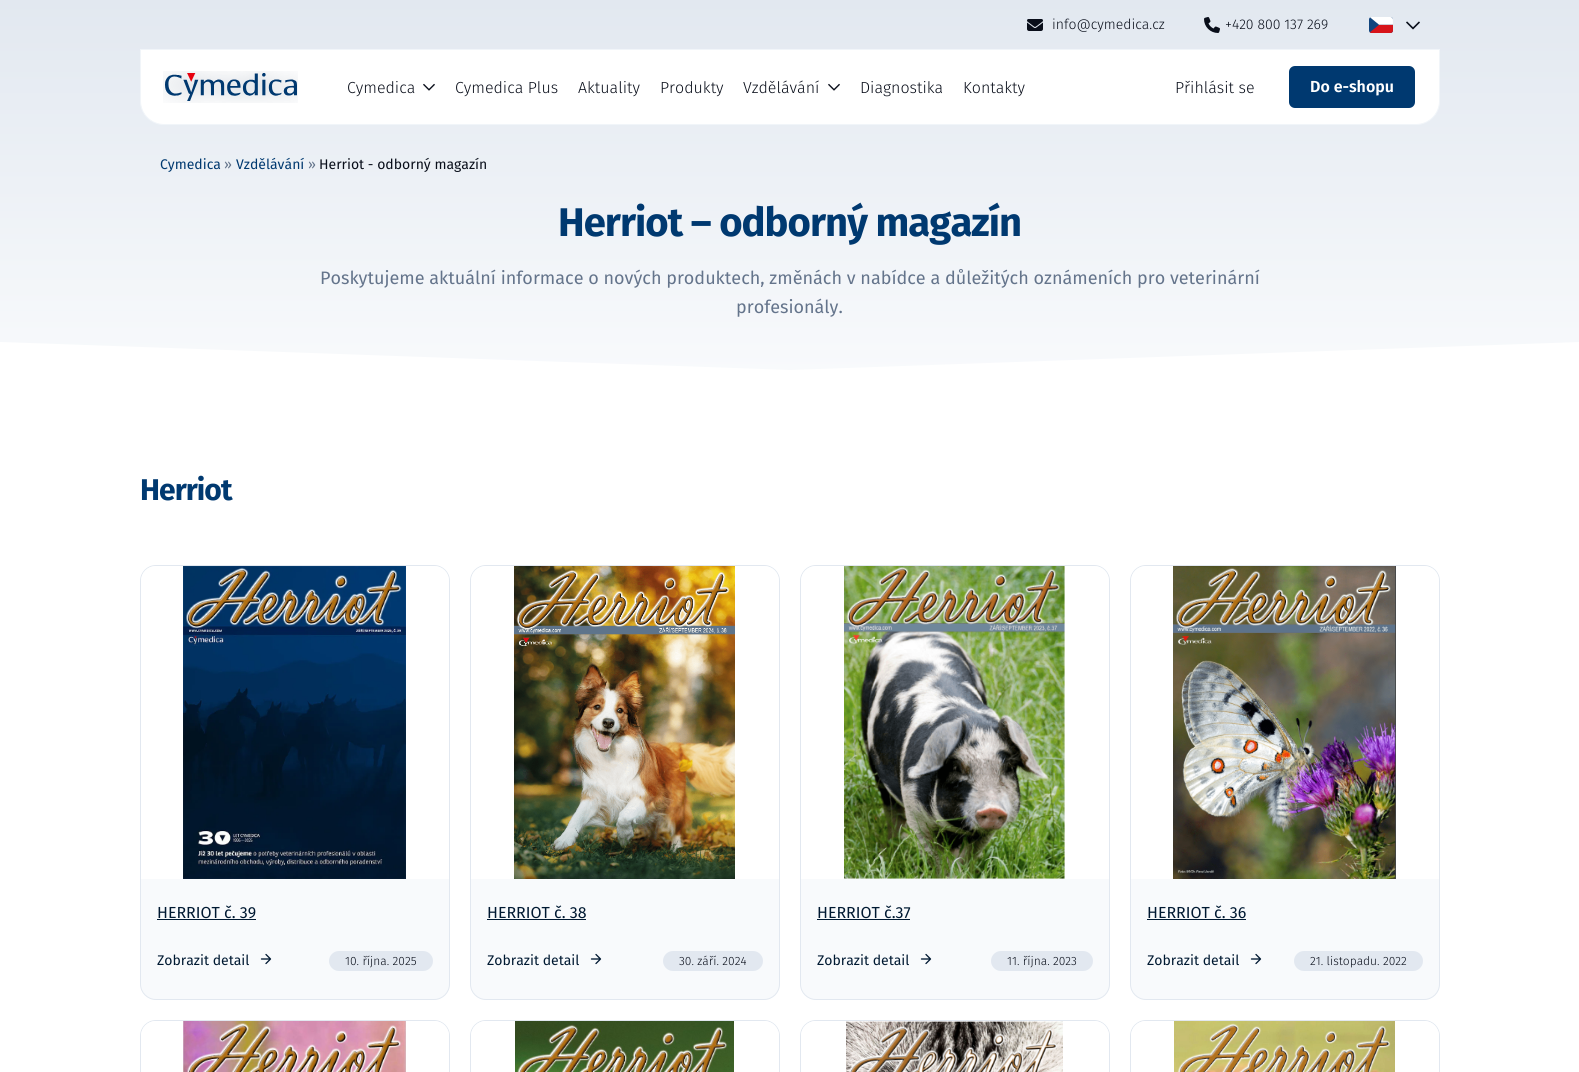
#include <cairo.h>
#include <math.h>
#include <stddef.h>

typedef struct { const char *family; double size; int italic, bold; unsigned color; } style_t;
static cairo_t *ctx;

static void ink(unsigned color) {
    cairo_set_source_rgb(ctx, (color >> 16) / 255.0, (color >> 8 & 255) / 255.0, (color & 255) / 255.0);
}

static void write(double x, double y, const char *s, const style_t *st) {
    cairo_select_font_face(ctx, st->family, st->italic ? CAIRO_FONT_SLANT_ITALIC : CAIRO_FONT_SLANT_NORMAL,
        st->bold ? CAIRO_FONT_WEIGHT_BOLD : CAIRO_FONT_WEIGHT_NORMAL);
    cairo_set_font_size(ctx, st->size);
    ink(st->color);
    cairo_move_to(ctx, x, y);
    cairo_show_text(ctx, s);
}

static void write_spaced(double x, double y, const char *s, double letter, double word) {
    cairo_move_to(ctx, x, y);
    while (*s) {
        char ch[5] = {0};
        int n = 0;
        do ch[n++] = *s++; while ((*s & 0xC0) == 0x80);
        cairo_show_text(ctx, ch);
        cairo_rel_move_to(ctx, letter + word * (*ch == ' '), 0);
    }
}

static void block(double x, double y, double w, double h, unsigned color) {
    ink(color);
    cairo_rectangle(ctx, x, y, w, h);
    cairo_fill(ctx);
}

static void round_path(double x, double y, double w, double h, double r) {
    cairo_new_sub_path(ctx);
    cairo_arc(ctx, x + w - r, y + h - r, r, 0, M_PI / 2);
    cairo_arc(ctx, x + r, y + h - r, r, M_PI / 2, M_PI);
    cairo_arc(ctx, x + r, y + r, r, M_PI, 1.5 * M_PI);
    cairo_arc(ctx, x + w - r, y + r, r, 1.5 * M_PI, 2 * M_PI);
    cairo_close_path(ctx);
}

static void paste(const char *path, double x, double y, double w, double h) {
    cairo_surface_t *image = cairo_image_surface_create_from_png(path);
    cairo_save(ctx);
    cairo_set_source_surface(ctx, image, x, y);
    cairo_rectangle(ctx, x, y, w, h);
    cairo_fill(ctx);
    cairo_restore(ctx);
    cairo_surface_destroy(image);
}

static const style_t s1 = {"Fira Sans Light", 14, 0, 0, 0x090e1a};
static const style_t s2 = {"Fira Sans Light", 16, 0, 0, 0x090e1a};
static const style_t s3 = {"Fira Sans SemiBold", 16, 0, 0, 0xffffff};
static const style_t s4 = {"Fira Sans", 14, 0, 0, 0x003970};
static const style_t s5 = {"Fira Sans", 14, 0, 0, 0x64748b};
static const style_t s6 = {"Fira Sans", 14, 0, 0, 0x090e1a};
static const style_t s7 = {"Fira Sans", 18, 0, 0, 0x64748b};
static const style_t s8 = {"Fira Sans", 16, 0, 0, 0x001932};
static const style_t s9 = {"Fira Sans", 14, 0, 0, 0x001932};
static const style_t s10 = {"Fira Sans Light", 12, 0, 0, 0x090e1a};

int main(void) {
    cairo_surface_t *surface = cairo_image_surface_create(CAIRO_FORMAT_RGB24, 1579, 1072);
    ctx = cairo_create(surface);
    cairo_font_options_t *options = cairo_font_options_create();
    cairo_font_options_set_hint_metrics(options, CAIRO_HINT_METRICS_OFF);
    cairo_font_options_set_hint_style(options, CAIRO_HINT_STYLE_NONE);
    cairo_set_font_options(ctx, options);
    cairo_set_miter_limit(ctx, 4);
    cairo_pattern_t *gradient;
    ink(0xffffff);
    cairo_paint(ctx);
    gradient = cairo_pattern_create_linear(790, 0, 790, 372);
    cairo_pattern_add_color_stop_rgba(gradient, 0, 0.886, 0.91, 0.941, 1);
    cairo_pattern_add_color_stop_rgba(gradient, 1, 0.973, 0.98, 0.988, 1);
    cairo_set_source(ctx, gradient);
    cairo_pattern_destroy(gradient);
    cairo_rectangle(ctx, 0, 0, 1579, 370);
    cairo_fill(ctx);
    paste("pic1.png", 1027, 19, 16, 12);
    write(1052, 29, "info@cymedica.cz", &s1);
    paste("pic2.png", 1204, 17, 16, 16);
    write(1225, 29, "+420 800 137 269", &s1);
    paste("pic3.png", 1369, 17, 24, 16);
    paste("pic4.png", 1406, 21, 14, 9);
    ink(0xffffff);
    cairo_new_path(ctx);
    cairo_move_to(ctx, 140.5, 49.5);
    cairo_line_to(ctx, 1439.5, 49.5);
    cairo_line_to(ctx, 1439.5, 101);
    cairo_curve_to(ctx, 1439.5, 114, 1429, 124.5, 1416, 124.5);
    cairo_line_to(ctx, 164, 124.5);
    cairo_curve_to(ctx, 151, 124.5, 140.5, 114, 140.5, 101);
    cairo_close_path(ctx);
    cairo_fill_preserve(ctx);
    ink(0xf1f5f9);
    cairo_set_line_width(ctx, 1);
    cairo_stroke(ctx);
    paste("pic5.png", 163, 71, 135, 32);
    write(347, 93, "Cymedica", &s2);
    paste("pic6.png", 423, 83, 12, 8);
    write(455, 93, "Cymedica Plus", &s2);
    write(578, 93, "Aktuality", &s2);
    write(660, 93, "Produkty", &s2);
    write(743, 93, "Vzdělávání", &s2);
    paste("pic6.png", 828, 83, 12, 8);
    write(860, 93, "Diagnostika", &s2);
    write(963, 93, "Kontakty", &s2);
    write(1175, 93, "Přihlásit se", &s2);
    ink(0x003970);
    round_path(1289, 66, 126, 42, 6);
    cairo_fill(ctx);
    write(1310, 92, "Do e-shopu", &s3);
    write(160, 169, "Cymedica", &s4);
    write(224, 169, "»", &s5);
    write(236, 169, "Vzdělávání", &s4);
    write(308, 169, "»", &s5);
    write(319, 169, "Herriot - odborný magazín", &s6);
    cairo_select_font_face(ctx, "Fira Sans", CAIRO_FONT_SLANT_NORMAL, CAIRO_FONT_WEIGHT_BOLD);
    cairo_set_font_size(ctx, 40);
    ink(0x003970);
    write_spaced(558, 236, "Herriot – odborný magazín", -0.95, 0);
    write(320, 284, "Poskytujeme aktuální informace o nových produktech, změnách v nabídce a důležitých oznámeních pro veterinární", &s7);
    write(736, 313, "profesionály.", &s7);
    ink(0xffffff);
    cairo_new_path(ctx);
    cairo_move_to(ctx, 1579, 342);
    cairo_line_to(ctx, 790, 370);
    cairo_line_to(ctx, 0, 342);
    cairo_line_to(ctx, 0, 372);
    cairo_line_to(ctx, 1579, 372);
    cairo_close_path(ctx);
    cairo_fill(ctx);
    cairo_select_font_face(ctx, "Fira Sans", CAIRO_FONT_SLANT_NORMAL, CAIRO_FONT_WEIGHT_BOLD);
    cairo_set_font_size(ctx, 30);
    ink(0x003970);
    write_spaced(140, 500, "Herriot", -0.95, 0);
    ink(0xf8fafc);
    round_path(140.5, 565.5, 309, 434, 15.5);
    cairo_fill_preserve(ctx);
    ink(0xe2e8f0);
    cairo_stroke(ctx);
    ink(0xffffff);
    cairo_new_path(ctx);
    cairo_move_to(ctx, 156, 566);
    cairo_line_to(ctx, 434, 566);
    cairo_curve_to(ctx, 442.5, 566, 449, 572.5, 449, 581);
    cairo_line_to(ctx, 449, 879);
    cairo_line_to(ctx, 141, 879);
    cairo_line_to(ctx, 141, 581);
    cairo_curve_to(ctx, 141, 572.5, 147.5, 566, 156, 566);
    cairo_close_path(ctx);
    cairo_fill(ctx);
    paste("pic7.png", 183, 566, 223, 313);
    write(157, 918, "HERRIOT č. 39", &s8);
    block(157, 919, 99, 1, 0x001932);
    write(157, 965, "Zobrazit detail", &s9);
    cairo_new_path(ctx);
    cairo_move_to(ctx, 261.5, 959);
    cairo_line_to(ctx, 270.5, 959);
    cairo_move_to(ctx, 266, 954.5);
    cairo_line_to(ctx, 270.5, 959);
    cairo_line_to(ctx, 266, 963.5);
    cairo_set_line_width(ctx, 1.3);
    cairo_set_line_cap(ctx, CAIRO_LINE_CAP_ROUND);
    cairo_set_line_join(ctx, CAIRO_LINE_JOIN_ROUND);
    cairo_stroke(ctx);
    ink(0xe2e8f0);
    round_path(329, 951, 104, 20, 10);
    cairo_fill(ctx);
    write(345, 965, "10. října. 2025", &s10);
    ink(0xf8fafc);
    round_path(470.5, 565.5, 309, 434, 15.5);
    cairo_fill_preserve(ctx);
    ink(0xe2e8f0);
    cairo_set_line_width(ctx, 1);
    cairo_set_line_cap(ctx, CAIRO_LINE_CAP_BUTT);
    cairo_set_line_join(ctx, CAIRO_LINE_JOIN_MITER);
    cairo_stroke(ctx);
    ink(0xffffff);
    cairo_new_path(ctx);
    cairo_move_to(ctx, 486, 566);
    cairo_line_to(ctx, 764, 566);
    cairo_curve_to(ctx, 772.5, 566, 779, 572.5, 779, 581);
    cairo_line_to(ctx, 779, 879);
    cairo_line_to(ctx, 471, 879);
    cairo_line_to(ctx, 471, 581);
    cairo_curve_to(ctx, 471, 572.5, 477.5, 566, 486, 566);
    cairo_close_path(ctx);
    cairo_fill(ctx);
    paste("pic8.png", 514, 566, 221, 313);
    write(487, 918, "HERRIOT č. 38", &s8);
    block(487, 919, 99, 1, 0x001932);
    write(487, 965, "Zobrazit detail", &s9);
    cairo_new_path(ctx);
    cairo_move_to(ctx, 591.5, 959);
    cairo_line_to(ctx, 600.5, 959);
    cairo_move_to(ctx, 596, 954.5);
    cairo_line_to(ctx, 600.5, 959);
    cairo_line_to(ctx, 596, 963.5);
    cairo_set_line_width(ctx, 1.3);
    cairo_set_line_cap(ctx, CAIRO_LINE_CAP_ROUND);
    cairo_set_line_join(ctx, CAIRO_LINE_JOIN_ROUND);
    cairo_stroke(ctx);
    ink(0xe2e8f0);
    round_path(663, 951, 100, 20, 10);
    cairo_fill(ctx);
    write(679, 965, "30. září. 2024", &s10);
    ink(0xf8fafc);
    round_path(800.5, 565.5, 309, 434, 15.5);
    cairo_fill_preserve(ctx);
    ink(0xe2e8f0);
    cairo_set_line_width(ctx, 1);
    cairo_set_line_cap(ctx, CAIRO_LINE_CAP_BUTT);
    cairo_set_line_join(ctx, CAIRO_LINE_JOIN_MITER);
    cairo_stroke(ctx);
    ink(0xffffff);
    cairo_new_path(ctx);
    cairo_move_to(ctx, 816, 566);
    cairo_line_to(ctx, 1094, 566);
    cairo_curve_to(ctx, 1102.5, 566, 1109, 572.5, 1109, 581);
    cairo_line_to(ctx, 1109, 879);
    cairo_line_to(ctx, 801, 879);
    cairo_line_to(ctx, 801, 581);
    cairo_curve_to(ctx, 801, 572.5, 807.5, 566, 816, 566);
    cairo_close_path(ctx);
    cairo_fill(ctx);
    paste("pic9.png", 844, 566, 221, 313);
    write(817, 918, "HERRIOT č.37", &s8);
    block(817, 919, 93, 1, 0x001932);
    write(817, 965, "Zobrazit detail", &s9);
    cairo_new_path(ctx);
    cairo_move_to(ctx, 921.5, 959);
    cairo_line_to(ctx, 930.5, 959);
    cairo_move_to(ctx, 926, 954.5);
    cairo_line_to(ctx, 930.5, 959);
    cairo_line_to(ctx, 926, 963.5);
    cairo_set_line_width(ctx, 1.3);
    cairo_set_line_cap(ctx, CAIRO_LINE_CAP_ROUND);
    cairo_set_line_join(ctx, CAIRO_LINE_JOIN_ROUND);
    cairo_stroke(ctx);
    ink(0xe2e8f0);
    round_path(991, 951, 102, 20, 10);
    cairo_fill(ctx);
    write(1007, 965, "11. října. 2023", &s10);
    ink(0xf8fafc);
    round_path(1130.5, 565.5, 309, 434, 15.5);
    cairo_fill_preserve(ctx);
    ink(0xe2e8f0);
    cairo_set_line_width(ctx, 1);
    cairo_set_line_cap(ctx, CAIRO_LINE_CAP_BUTT);
    cairo_set_line_join(ctx, CAIRO_LINE_JOIN_MITER);
    cairo_stroke(ctx);
    ink(0xffffff);
    cairo_new_path(ctx);
    cairo_move_to(ctx, 1146, 566);
    cairo_line_to(ctx, 1424, 566);
    cairo_curve_to(ctx, 1432.5, 566, 1439, 572.5, 1439, 581);
    cairo_line_to(ctx, 1439, 879);
    cairo_line_to(ctx, 1131, 879);
    cairo_line_to(ctx, 1131, 581);
    cairo_curve_to(ctx, 1131, 572.5, 1137.5, 566, 1146, 566);
    cairo_close_path(ctx);
    cairo_fill(ctx);
    paste("pic10.png", 1173, 566, 223, 313);
    write(1147, 918, "HERRIOT č. 36", &s8);
    block(1147, 919, 99, 1, 0x001932);
    write(1147, 965, "Zobrazit detail", &s9);
    cairo_new_path(ctx);
    cairo_move_to(ctx, 1251.5, 959);
    cairo_line_to(ctx, 1260.5, 959);
    cairo_move_to(ctx, 1256, 954.5);
    cairo_line_to(ctx, 1260.5, 959);
    cairo_line_to(ctx, 1256, 963.5);
    cairo_set_line_width(ctx, 1.3);
    cairo_set_line_cap(ctx, CAIRO_LINE_CAP_ROUND);
    cairo_set_line_join(ctx, CAIRO_LINE_JOIN_ROUND);
    cairo_stroke(ctx);
    ink(0xe2e8f0);
    round_path(1294, 951, 129, 20, 10);
    cairo_fill(ctx);
    write(1310, 965, "21. listopadu. 2022", &s10);
    round_path(140.5, 1020.5, 309, 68, 15.5);
    ink(0xe2e8f0);
    cairo_set_line_width(ctx, 1);
    cairo_set_line_cap(ctx, CAIRO_LINE_CAP_BUTT);
    cairo_set_line_join(ctx, CAIRO_LINE_JOIN_MITER);
    cairo_stroke(ctx);
    ink(0xffffff);
    cairo_new_path(ctx);
    cairo_move_to(ctx, 156, 1021);
    cairo_line_to(ctx, 434, 1021);
    cairo_curve_to(ctx, 442.5, 1021, 449, 1027.5, 449, 1036);
    cairo_line_to(ctx, 449, 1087);
    cairo_line_to(ctx, 141, 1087);
    cairo_line_to(ctx, 141, 1036);
    cairo_curve_to(ctx, 141, 1027.5, 147.5, 1021, 156, 1021);
    cairo_close_path(ctx);
    cairo_fill(ctx);
    paste("pic11.png", 183, 1021, 223, 51);
    round_path(470.5, 1020.5, 309, 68, 15.5);
    ink(0xe2e8f0);
    cairo_stroke(ctx);
    ink(0xffffff);
    cairo_new_path(ctx);
    cairo_move_to(ctx, 486, 1021);
    cairo_line_to(ctx, 764, 1021);
    cairo_curve_to(ctx, 772.5, 1021, 779, 1027.5, 779, 1036);
    cairo_line_to(ctx, 779, 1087);
    cairo_line_to(ctx, 471, 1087);
    cairo_line_to(ctx, 471, 1036);
    cairo_curve_to(ctx, 471, 1027.5, 477.5, 1021, 486, 1021);
    cairo_close_path(ctx);
    cairo_fill(ctx);
    paste("pic12.png", 515, 1021, 219, 51);
    round_path(800.5, 1020.5, 309, 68, 15.5);
    ink(0xe2e8f0);
    cairo_stroke(ctx);
    ink(0xffffff);
    cairo_new_path(ctx);
    cairo_move_to(ctx, 816, 1021);
    cairo_line_to(ctx, 1094, 1021);
    cairo_curve_to(ctx, 1102.5, 1021, 1109, 1027.5, 1109, 1036);
    cairo_line_to(ctx, 1109, 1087);
    cairo_line_to(ctx, 801, 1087);
    cairo_line_to(ctx, 801, 1036);
    cairo_curve_to(ctx, 801, 1027.5, 807.5, 1021, 816, 1021);
    cairo_close_path(ctx);
    cairo_fill(ctx);
    paste("pic13.png", 846, 1021, 217, 51);
    round_path(1130.5, 1020.5, 309, 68, 15.5);
    ink(0xe2e8f0);
    cairo_stroke(ctx);
    ink(0xffffff);
    cairo_new_path(ctx);
    cairo_move_to(ctx, 1146, 1021);
    cairo_line_to(ctx, 1424, 1021);
    cairo_curve_to(ctx, 1432.5, 1021, 1439, 1027.5, 1439, 1036);
    cairo_line_to(ctx, 1439, 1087);
    cairo_line_to(ctx, 1131, 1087);
    cairo_line_to(ctx, 1131, 1036);
    cairo_curve_to(ctx, 1131, 1027.5, 1137.5, 1021, 1146, 1021);
    cairo_close_path(ctx);
    cairo_fill(ctx);
    paste("pic14.png", 1174, 1021, 221, 51);
    cairo_surface_write_to_png(surface, "screenshot.png");
    cairo_font_options_destroy(options);
    cairo_destroy(ctx);
    cairo_surface_destroy(surface);
    return 0;
}
